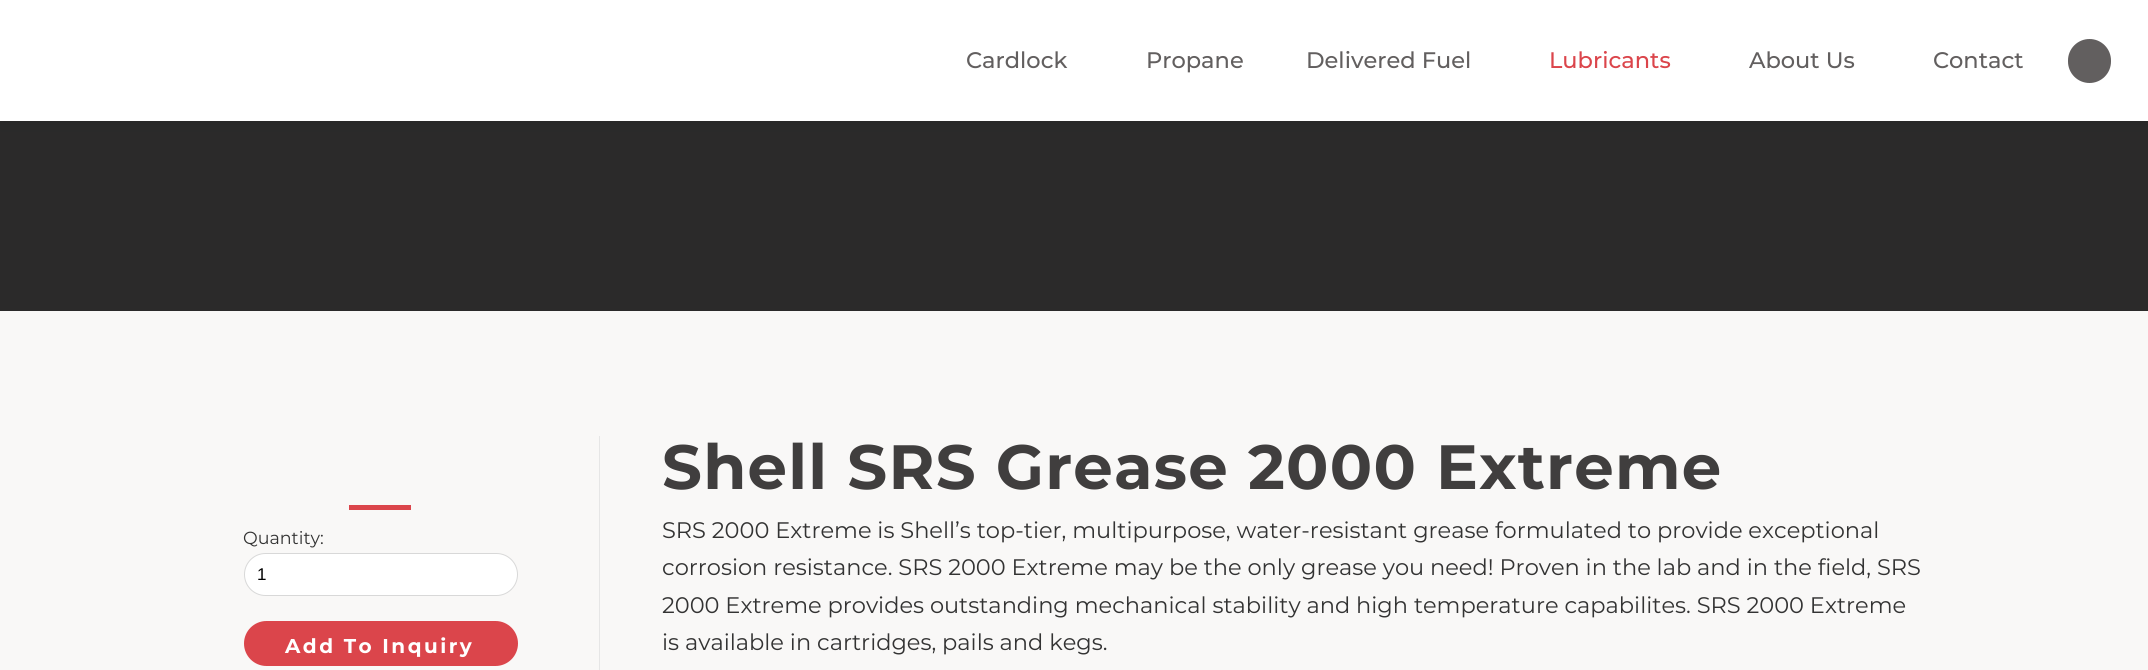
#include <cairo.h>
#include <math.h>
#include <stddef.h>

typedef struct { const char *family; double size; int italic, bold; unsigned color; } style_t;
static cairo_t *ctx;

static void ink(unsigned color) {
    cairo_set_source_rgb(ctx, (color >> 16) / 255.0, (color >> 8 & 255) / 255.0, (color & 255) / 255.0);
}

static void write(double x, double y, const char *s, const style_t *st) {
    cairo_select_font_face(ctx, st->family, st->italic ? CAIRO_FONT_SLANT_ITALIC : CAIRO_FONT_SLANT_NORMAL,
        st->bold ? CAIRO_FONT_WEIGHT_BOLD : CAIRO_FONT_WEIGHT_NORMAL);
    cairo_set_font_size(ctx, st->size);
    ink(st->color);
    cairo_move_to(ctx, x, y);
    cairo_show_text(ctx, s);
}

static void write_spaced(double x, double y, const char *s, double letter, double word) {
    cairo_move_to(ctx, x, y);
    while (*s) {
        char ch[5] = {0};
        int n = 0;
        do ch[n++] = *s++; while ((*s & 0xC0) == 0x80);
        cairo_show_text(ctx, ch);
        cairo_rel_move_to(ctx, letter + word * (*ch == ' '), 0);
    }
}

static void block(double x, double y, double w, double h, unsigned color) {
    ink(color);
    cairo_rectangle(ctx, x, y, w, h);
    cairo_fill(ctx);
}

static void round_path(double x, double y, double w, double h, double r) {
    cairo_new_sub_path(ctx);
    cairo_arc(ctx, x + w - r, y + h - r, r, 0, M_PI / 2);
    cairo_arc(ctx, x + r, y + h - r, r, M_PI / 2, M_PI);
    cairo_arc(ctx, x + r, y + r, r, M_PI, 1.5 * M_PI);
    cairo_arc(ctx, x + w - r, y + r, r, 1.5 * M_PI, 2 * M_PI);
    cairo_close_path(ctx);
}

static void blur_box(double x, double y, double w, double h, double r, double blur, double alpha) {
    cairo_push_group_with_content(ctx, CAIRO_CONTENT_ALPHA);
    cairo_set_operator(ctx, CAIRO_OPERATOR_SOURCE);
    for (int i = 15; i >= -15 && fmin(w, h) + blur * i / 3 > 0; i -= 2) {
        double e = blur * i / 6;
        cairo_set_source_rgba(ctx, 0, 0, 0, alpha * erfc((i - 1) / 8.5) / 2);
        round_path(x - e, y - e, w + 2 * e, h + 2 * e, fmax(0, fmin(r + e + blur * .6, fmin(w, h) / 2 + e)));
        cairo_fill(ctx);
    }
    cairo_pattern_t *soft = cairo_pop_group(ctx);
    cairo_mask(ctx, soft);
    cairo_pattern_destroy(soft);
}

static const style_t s1 = {"Montserrat Medium", 22.5, 0, 0, 0x625f5f};
static const style_t s2 = {"Montserrat Medium", 22.5, 0, 0, 0xdb454b};
static const style_t s3 = {"Montserrat", 17.5, 0, 0, 0x333333};
static const style_t s4 = {"Liberation Sans", 17, 0, 0, 0x000000};
static const style_t s5 = {"Montserrat", 22.5, 0, 0, 0x333333};

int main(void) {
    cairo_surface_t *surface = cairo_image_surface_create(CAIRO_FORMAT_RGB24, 2148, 670);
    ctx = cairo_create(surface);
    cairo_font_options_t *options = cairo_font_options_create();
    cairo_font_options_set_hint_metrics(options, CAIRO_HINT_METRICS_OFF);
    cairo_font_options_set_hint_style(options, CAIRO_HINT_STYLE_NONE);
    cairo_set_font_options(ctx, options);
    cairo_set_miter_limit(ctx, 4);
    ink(0xf9f8f7);
    cairo_paint(ctx);
    block(0, 121, 2148, 190, 0x2b2a2a);
    ink(0x000000);
    blur_box(0, 0, 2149, 121, 0, 7.5, 0.15);
    block(0, 0, 2148, 121, 0xffffff);
    write(966, 68, "Cardlock", &s1);
    write(1146, 68, "Propane", &s1);
    write(1306, 68, "Delivered Fuel", &s1);
    write(1549, 68, "Lubricants", &s2);
    write(1749, 68, "About Us", &s1);
    write(1933, 68, "Contact", &s1);
    round_path(2068, 39, 43, 44, 21.5);
    cairo_fill(ctx);
    block(599, 436, 1, 234, 0xe6e6e6);
    block(349, 505, 62, 5, 0xdb454b);
    write(243, 544, "Quantity:", &s3);
    ink(0xffffff);
    round_path(244.5, 553.5, 273, 42, 21);
    cairo_fill_preserve(ctx);
    ink(0xd8d8d8);
    cairo_set_line_width(ctx, 1);
    cairo_stroke(ctx);
    write(257, 580, "1", &s4);
    ink(0xdb454b);
    round_path(244, 621, 274, 45, 22.5);
    cairo_fill(ctx);
    cairo_select_font_face(ctx, "Montserrat", CAIRO_FONT_SLANT_NORMAL, CAIRO_FONT_WEIGHT_BOLD);
    cairo_set_font_size(ctx, 20);
    ink(0xffffff);
    write_spaced(285, 653, "Add To Inquiry", 2.5, 0);
    cairo_set_font_size(ctx, 62.5);
    ink(0x403e3e);
    write_spaced(662, 489, "Shell SRS Grease 2000 Extreme", 1.25, 0);
    write(662, 538, "SRS 2000 Extreme is Shell’s top-tier, multipurpose, water-resistant grease formulated to provide exceptional", &s5);
    write(662, 575, "corrosion resistance. SRS 2000 Extreme may be the only grease you need! Proven in the lab and in the field, SRS", &s5);
    write(662, 613, "2000 Extreme provides outstanding mechanical stability and high temperature capabilites. SRS 2000 Extreme", &s5);
    write(662, 650, "is available in cartridges, pails and kegs.", &s5);
    cairo_surface_write_to_png(surface, "screenshot.png");
    cairo_font_options_destroy(options);
    cairo_destroy(ctx);
    cairo_surface_destroy(surface);
    return 0;
}
